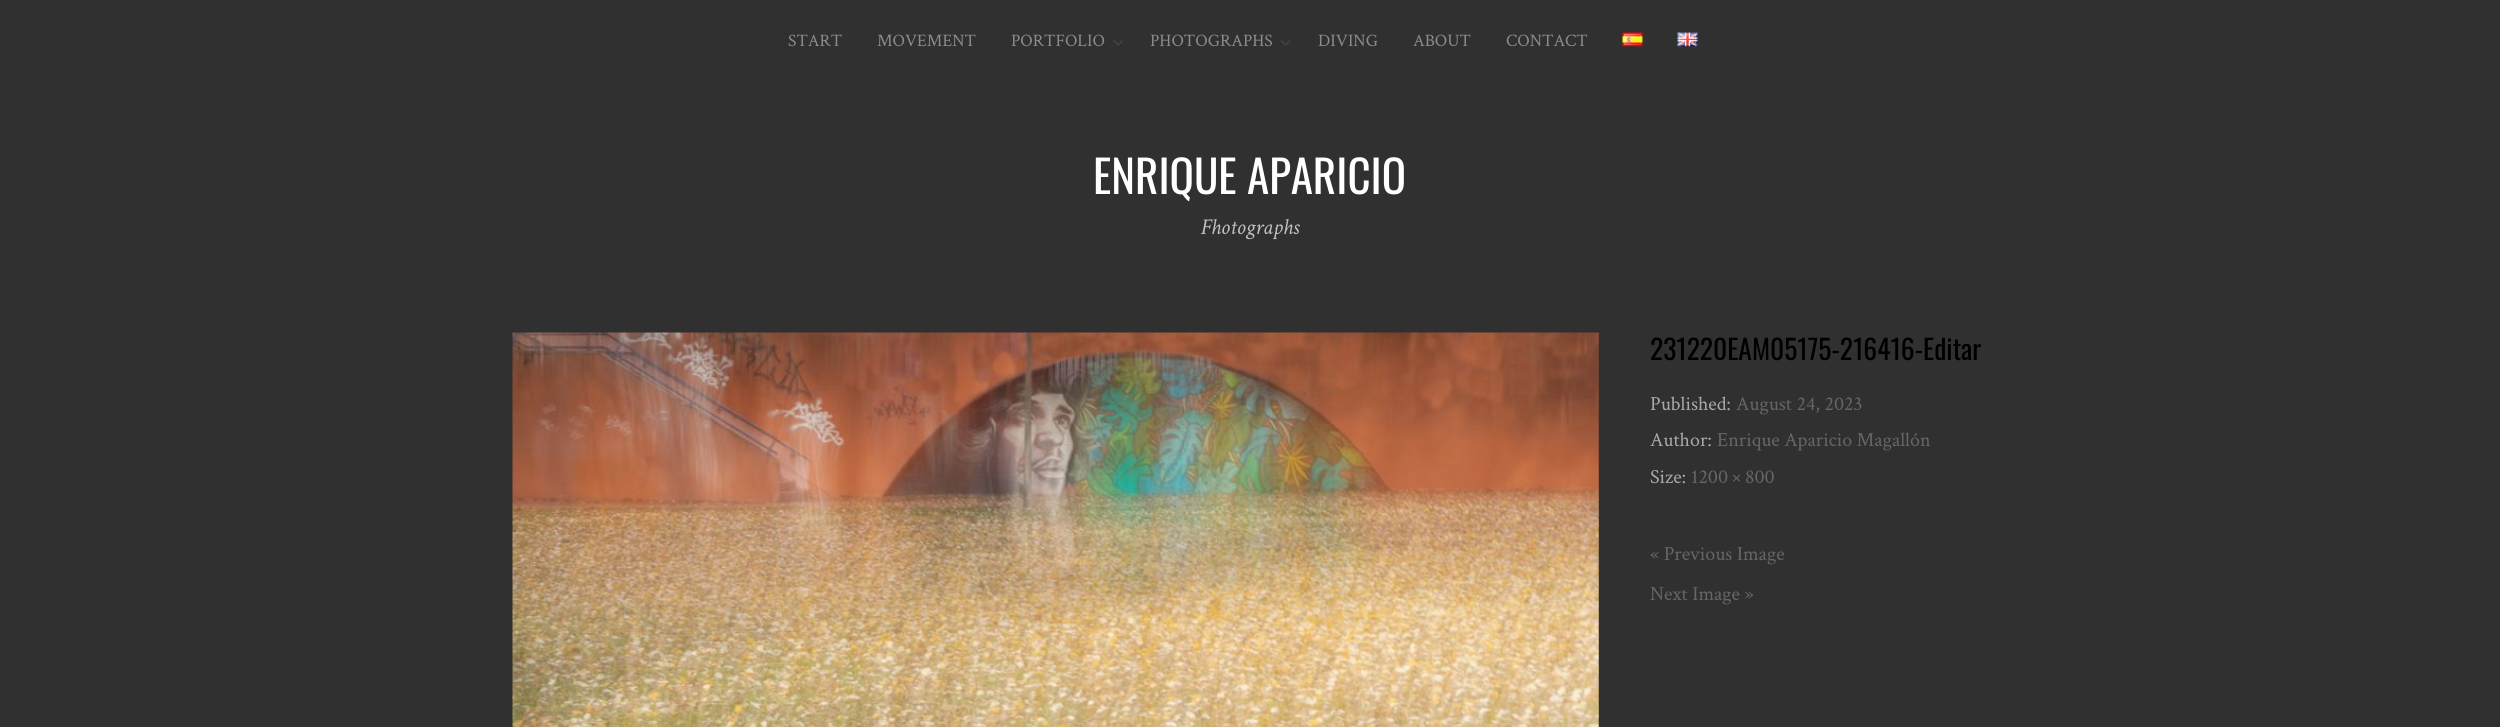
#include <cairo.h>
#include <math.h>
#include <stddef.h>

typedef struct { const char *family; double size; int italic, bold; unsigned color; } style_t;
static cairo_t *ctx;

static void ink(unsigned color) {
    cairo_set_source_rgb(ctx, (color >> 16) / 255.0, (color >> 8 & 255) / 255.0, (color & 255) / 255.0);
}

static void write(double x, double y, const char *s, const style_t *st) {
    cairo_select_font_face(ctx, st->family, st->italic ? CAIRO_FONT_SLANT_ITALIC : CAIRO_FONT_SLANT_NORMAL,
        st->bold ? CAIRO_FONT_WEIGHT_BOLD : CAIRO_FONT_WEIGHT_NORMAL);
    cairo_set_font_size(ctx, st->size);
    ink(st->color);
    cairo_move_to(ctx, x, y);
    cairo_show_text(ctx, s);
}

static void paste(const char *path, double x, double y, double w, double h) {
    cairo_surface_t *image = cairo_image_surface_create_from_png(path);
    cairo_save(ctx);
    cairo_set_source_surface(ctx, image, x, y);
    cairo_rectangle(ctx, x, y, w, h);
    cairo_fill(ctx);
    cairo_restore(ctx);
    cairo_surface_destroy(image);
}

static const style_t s1 = {"Crimson Text", 17.5, 0, 0, 0x8c8c8c};
static const style_t s2 = {"Oswald", 45, 0, 0, 0xffffff};
static const style_t s3 = {"Crimson Text", 22.5, 1, 0, 0xc1c1c1};
static const style_t s4 = {"Oswald", 27.5, 0, 0, 0x000000};
static const style_t s5 = {"Crimson Text", 20, 0, 0, 0xaaaaaa};
static const style_t s6 = {"Crimson Text", 20, 0, 0, 0x666666};

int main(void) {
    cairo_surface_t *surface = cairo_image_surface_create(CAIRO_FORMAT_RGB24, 2500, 727);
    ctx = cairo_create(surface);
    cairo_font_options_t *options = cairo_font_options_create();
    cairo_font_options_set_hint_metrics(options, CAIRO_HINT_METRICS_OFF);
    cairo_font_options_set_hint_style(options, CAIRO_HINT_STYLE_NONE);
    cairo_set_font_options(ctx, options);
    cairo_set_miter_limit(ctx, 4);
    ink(0x303030);
    cairo_paint(ctx);
    write(788, 46, "START", &s1);
    write(877, 46, "MOVEMENT", &s1);
    write(1011, 46, "PORTFOLIO", &s1);
    paste("pic1.png", 1113, 40, 10, 6);
    write(1150, 46, "PHOTOGRAPHS", &s1);
    paste("pic2.png", 1281, 40, 10, 6);
    write(1318, 46, "DIVING", &s1);
    write(1413, 46, "ABOUT", &s1);
    write(1506, 46, "CONTACT", &s1);
    paste("pic3.png", 1622, 32, 21, 15);
    paste("pic4.png", 1677, 32, 21, 15);
    write(1093, 194, "ENRIQUE APARICIO", &s2);
    write(1201, 234, "Fhotographs", &s3);
    paste("pic5.png", 512, 332, 1087, 395);
    write(1650, 360, "231220EAM05175-216416-Editar", &s4);
    write(1650, 410, "Published:", &s5);
    write(1736, 410, "August 24, 2023", &s6);
    write(1650, 446, "Author:", &s5);
    write(1717, 446, "Enrique Aparicio Magallón", &s6);
    write(1650, 483, "Size:", &s5);
    write(1691, 483, "1200 × 800", &s6);
    write(1650, 560, "« Previous Image", &s6);
    write(1650, 600, "Next Image »", &s6);
    cairo_surface_write_to_png(surface, "screenshot.png");
    cairo_font_options_destroy(options);
    cairo_destroy(ctx);
    cairo_surface_destroy(surface);
    return 0;
}
